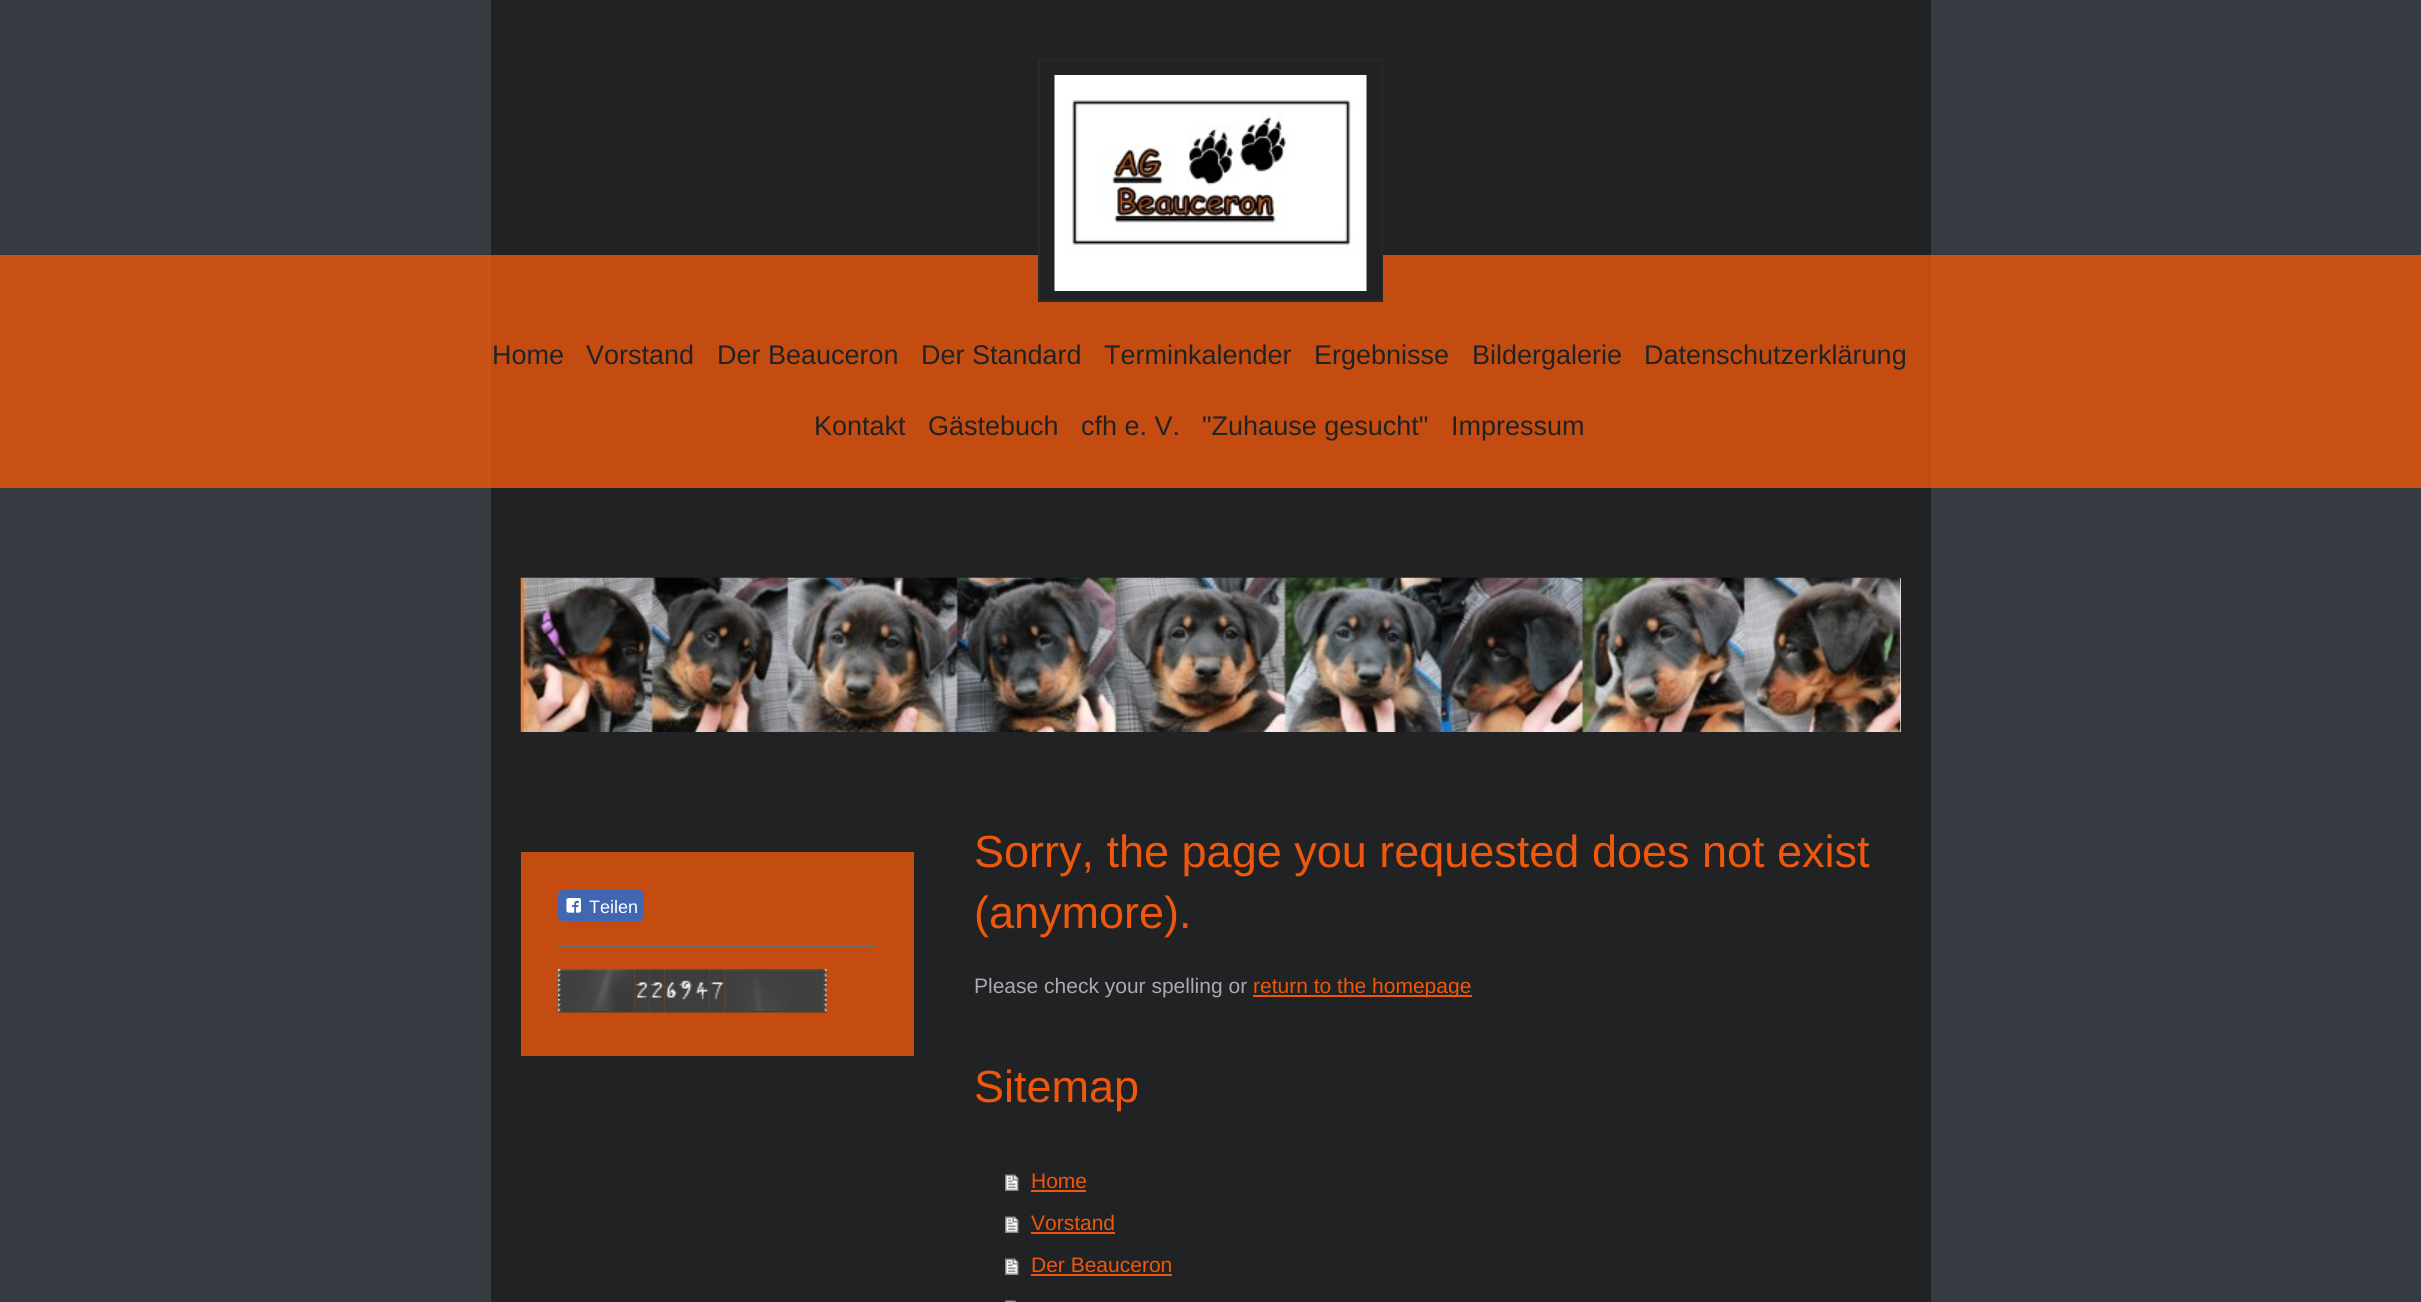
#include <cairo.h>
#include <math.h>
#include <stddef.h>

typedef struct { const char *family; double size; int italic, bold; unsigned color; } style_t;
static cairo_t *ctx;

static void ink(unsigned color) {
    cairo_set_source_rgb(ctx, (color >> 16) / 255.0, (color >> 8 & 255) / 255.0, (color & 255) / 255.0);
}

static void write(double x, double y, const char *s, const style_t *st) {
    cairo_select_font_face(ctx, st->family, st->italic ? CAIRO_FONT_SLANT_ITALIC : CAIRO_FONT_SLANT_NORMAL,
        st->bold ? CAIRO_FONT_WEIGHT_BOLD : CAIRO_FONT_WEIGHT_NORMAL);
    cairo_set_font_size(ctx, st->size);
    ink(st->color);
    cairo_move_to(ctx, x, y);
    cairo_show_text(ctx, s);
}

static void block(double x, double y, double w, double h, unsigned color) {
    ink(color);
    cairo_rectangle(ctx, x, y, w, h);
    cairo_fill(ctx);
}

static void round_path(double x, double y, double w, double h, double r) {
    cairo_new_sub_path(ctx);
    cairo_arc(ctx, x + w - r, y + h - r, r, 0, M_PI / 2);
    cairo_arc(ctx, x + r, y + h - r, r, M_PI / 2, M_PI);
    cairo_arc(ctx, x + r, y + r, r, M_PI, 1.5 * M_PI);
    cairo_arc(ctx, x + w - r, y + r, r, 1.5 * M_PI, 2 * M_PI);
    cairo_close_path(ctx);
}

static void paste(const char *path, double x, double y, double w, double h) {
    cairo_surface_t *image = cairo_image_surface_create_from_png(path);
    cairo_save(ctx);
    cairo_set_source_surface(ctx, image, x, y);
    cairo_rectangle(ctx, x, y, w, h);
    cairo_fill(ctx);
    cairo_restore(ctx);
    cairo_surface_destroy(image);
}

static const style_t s1 = {"Liberation Sans", 27, 0, 0, 0x212224};
static const style_t s2 = {"Liberation Sans", 18, 0, 0, 0xffffff};
static const style_t s3 = {"Liberation Sans", 45, 0, 0, 0xee570c};
static const style_t s4 = {"Liberation Sans", 21, 0, 0, 0xa9abaf};
static const style_t s5 = {"Liberation Sans", 21, 0, 0, 0xee570c};

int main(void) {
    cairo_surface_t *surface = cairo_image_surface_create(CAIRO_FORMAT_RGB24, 2421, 1302);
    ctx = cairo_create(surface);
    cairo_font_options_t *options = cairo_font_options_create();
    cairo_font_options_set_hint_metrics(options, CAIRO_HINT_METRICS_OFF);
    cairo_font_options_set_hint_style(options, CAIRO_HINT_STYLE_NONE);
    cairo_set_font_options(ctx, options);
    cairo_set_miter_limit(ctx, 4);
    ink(0x373c42);
    cairo_paint(ctx);
    block(0, 255, 2421, 233, 0xc95217);
    block(491, 0, 1440, 1302, 0x212224);
    block(491, 255, 1440, 233, 0xc54c11);
    cairo_rectangle(ctx, 1039, 60, 343, 241);
    ink(0x28292b);
    cairo_stroke(ctx);
    block(1040, 60, 342, 240, 0x212224);
    paste("pic1.png", 1054, 75, 313, 216);
    write(492, 364, "Home", &s1);
    write(586, 364, "Vorstand", &s1);
    write(717, 364, "Der Beauceron", &s1);
    write(921, 364, "Der Standard", &s1);
    write(1104, 364, "Terminkalender", &s1);
    write(1314, 364, "Ergebnisse", &s1);
    write(1472, 364, "Bildergalerie", &s1);
    write(1644, 364, "Datenschutzerklärung", &s1);
    write(814, 435, "Kontakt", &s1);
    write(928, 435, "Gästebuch", &s1);
    write(1081, 435, "cfh e. V.", &s1);
    write(1202, 435, "\"Zuhause gesucht\"", &s1);
    write(1451, 435, "Impressum", &s1);
    block(1900, 578, 1, 154, 0xeeeeee);
    paste("pic2.png", 520, 577, 1381, 155);
    block(521, 852, 393, 204, 0xc54c11);
    ink(0x4267b2);
    round_path(558, 890, 86, 31, 5);
    cairo_fill(ctx);
    paste("pic3.png", 566, 898, 15, 15);
    write(589, 913, "Teilen", &s2);
    block(558, 945, 318, 2, 0x6a6d72);
    paste("pic4.png", 558, 969, 77, 44);
    paste("pic5.png", 634, 969, 16, 44);
    paste("pic6.png", 649, 969, 16, 44);
    paste("pic7.png", 664, 969, 14, 44);
    paste("pic8.png", 678, 969, 15, 44);
    paste("pic9.png", 693, 969, 17, 44);
    paste("pic10.png", 709, 969, 16, 44);
    paste("pic11.png", 724, 969, 103, 44);
    write(974, 867, "Sorry, the page you requested does not exist", &s3);
    write(974, 928, "(anymore).", &s3);
    write(974, 993, "Please check your spelling or", &s4);
    block(1253, 995, 219, 2, 0xee570c);
    write(1253, 993, "return to the homepage", &s5);
    write(974, 1102, "Sitemap", &s3);
    paste("pic12.png", 1005, 1174, 14, 17);
    write(1031, 1188, "Home", &s5);
    block(1031, 1190, 55, 2, 0xee570c);
    paste("pic12.png", 1005, 1216, 14, 17);
    write(1031, 1230, "Vorstand", &s5);
    block(1031, 1232, 84, 2, 0xee570c);
    paste("pic12.png", 1005, 1258, 14, 17);
    write(1031, 1272, "Der Beauceron", &s5);
    block(1031, 1274, 141, 2, 0xee570c);
    paste("pic13.png", 1005, 1300, 12, 2);
    cairo_surface_write_to_png(surface, "screenshot.png");
    cairo_font_options_destroy(options);
    cairo_destroy(ctx);
    cairo_surface_destroy(surface);
    return 0;
}
